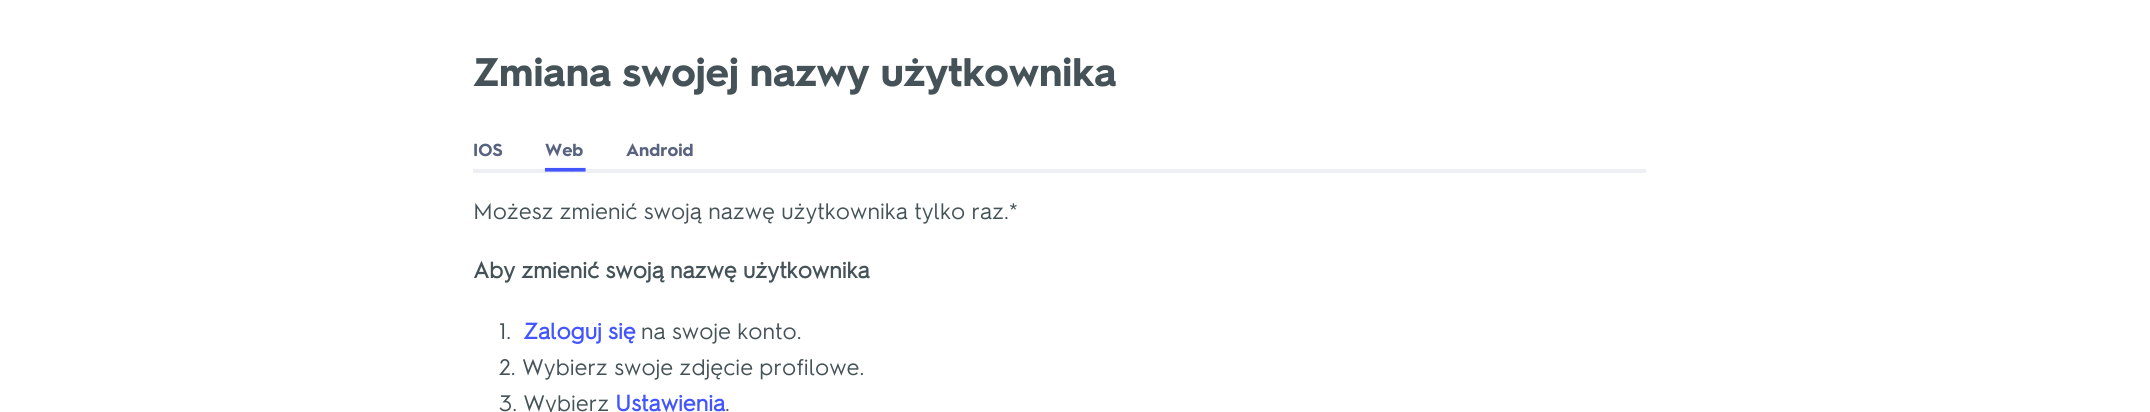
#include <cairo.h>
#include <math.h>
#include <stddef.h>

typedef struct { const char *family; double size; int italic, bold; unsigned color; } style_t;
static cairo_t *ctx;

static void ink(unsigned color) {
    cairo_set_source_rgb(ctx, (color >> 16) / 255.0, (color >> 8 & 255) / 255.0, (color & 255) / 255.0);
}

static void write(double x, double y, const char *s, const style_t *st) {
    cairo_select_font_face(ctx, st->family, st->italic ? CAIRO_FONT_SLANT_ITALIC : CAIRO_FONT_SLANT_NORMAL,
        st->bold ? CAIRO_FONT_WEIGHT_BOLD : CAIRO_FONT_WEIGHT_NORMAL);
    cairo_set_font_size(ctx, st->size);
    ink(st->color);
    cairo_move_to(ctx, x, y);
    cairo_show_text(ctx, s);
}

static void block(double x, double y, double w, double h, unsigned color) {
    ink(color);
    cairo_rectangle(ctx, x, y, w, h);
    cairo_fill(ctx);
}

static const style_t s1 = {"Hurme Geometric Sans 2", 40, 0, 1, 0x455358};
static const style_t s2 = {"Hurme Geometric Sans 2", 17.5, 0, 1, 0x586380};
static const style_t s3 = {"Hurme Geometric Sans 2", 32, 0, 1, 0x4255ff};
static const style_t s4 = {"Hurme Geometric Sans 2", 22.5, 0, 0, 0x455358};
static const style_t s5 = {"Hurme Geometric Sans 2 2", 22.5, 0, 1, 0x455358};
static const style_t s6 = {"Hurme Geometric Sans 2 2", 22.5, 0, 1, 0x4255ff};

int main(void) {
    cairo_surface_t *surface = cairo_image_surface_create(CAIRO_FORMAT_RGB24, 2150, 412);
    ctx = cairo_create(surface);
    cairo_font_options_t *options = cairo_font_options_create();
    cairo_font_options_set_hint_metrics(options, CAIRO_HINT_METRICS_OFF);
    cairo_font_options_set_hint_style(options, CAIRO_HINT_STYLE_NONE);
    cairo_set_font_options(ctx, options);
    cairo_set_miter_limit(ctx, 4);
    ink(0xffffff);
    cairo_paint(ctx);
    write(473, 86, "Zmiana swojej nazwy użytkownika", &s1);
    write(473, 156, "IOS", &s2);
    write(545, 156, "Web", &s2);
    block(473, 169, 1173, 4, 0xedeff4);
    write(545, 166, "___", &s3);
    write(626, 156, "Android", &s2);
    write(473, 219, "Możesz zmienić swoją nazwę użytkownika tylko raz.*", &s4);
    write(473, 278, "Aby zmienić swoją nazwę użytkownika", &s5);
    write(499, 339, "1.", &s4);
    write(523, 339, "Zaloguj się", &s6);
    write(641, 339, "na swoje konto.", &s4);
    write(499, 375, "2. Wybierz swoje zdjęcie profilowe.", &s4);
    write(499, 411, "3. Wybierz", &s4);
    write(615, 411, "Ustawienia", &s6);
    write(725, 411, ".", &s4);
    cairo_surface_write_to_png(surface, "screenshot.png");
    cairo_font_options_destroy(options);
    cairo_destroy(ctx);
    cairo_surface_destroy(surface);
    return 0;
}
